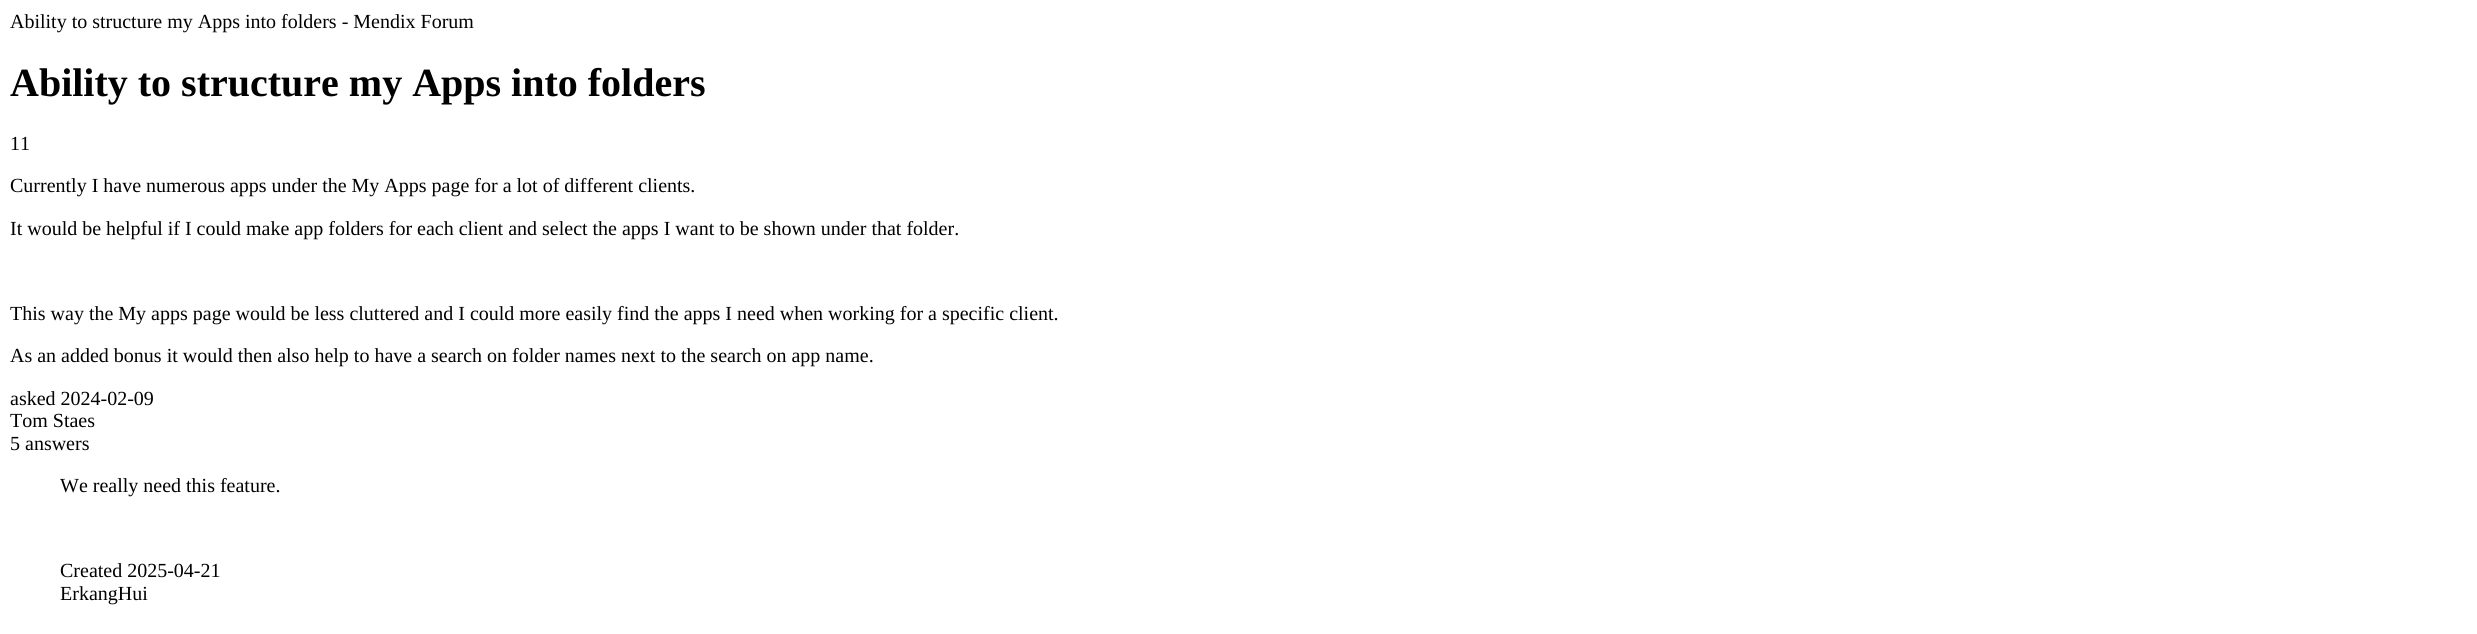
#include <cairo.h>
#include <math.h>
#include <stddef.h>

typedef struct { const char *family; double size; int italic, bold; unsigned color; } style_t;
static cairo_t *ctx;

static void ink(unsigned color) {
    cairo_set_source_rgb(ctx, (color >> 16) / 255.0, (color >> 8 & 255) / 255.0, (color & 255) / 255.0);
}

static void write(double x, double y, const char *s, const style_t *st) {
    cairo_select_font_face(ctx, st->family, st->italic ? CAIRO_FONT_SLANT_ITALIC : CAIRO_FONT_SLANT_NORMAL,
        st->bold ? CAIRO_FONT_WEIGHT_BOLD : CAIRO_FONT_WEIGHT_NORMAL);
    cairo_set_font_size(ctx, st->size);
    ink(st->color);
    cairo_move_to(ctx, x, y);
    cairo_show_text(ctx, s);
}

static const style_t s1 = {"Liberation Serif", 20, 0, 0, 0x000000};
static const style_t s2 = {"Liberation Serif", 40, 0, 1, 0x000000};

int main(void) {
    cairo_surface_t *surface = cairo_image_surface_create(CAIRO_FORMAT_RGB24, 2477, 634);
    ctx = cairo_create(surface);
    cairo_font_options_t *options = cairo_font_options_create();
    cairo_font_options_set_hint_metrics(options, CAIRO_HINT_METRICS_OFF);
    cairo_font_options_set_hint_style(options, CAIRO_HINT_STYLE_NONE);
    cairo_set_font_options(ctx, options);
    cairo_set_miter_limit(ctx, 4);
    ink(0xffffff);
    cairo_paint(ctx);
    write(10, 28, "Ability to structure my Apps into folders - Mendix Forum", &s1);
    write(10, 96, "Ability to structure my Apps into folders", &s2);
    write(10, 150, "11", &s1);
    write(10, 192, "Currently I have numerous apps under the My Apps page for a lot of different clients.", &s1);
    write(10, 235, "It would be helpful if I could make app folders for each client and select the apps I want to be shown under that folder.", &s1);
    write(10, 320, "This way the My apps page would be less cluttered and I could more easily find the apps I need when working for a specific client.", &s1);
    write(10, 362, "As an added bonus it would then also help to have a search on folder names next to the search on app name.", &s1);
    write(10, 405, "asked 2024-02-09", &s1);
    write(10, 427, "Tom Staes", &s1);
    write(10, 450, "5 answers", &s1);
    write(60, 492, "We really need this feature.", &s1);
    write(60, 577, "Created 2025-04-21", &s1);
    write(60, 600, "ErkangHui", &s1);
    cairo_surface_write_to_png(surface, "screenshot.png");
    cairo_font_options_destroy(options);
    cairo_destroy(ctx);
    cairo_surface_destroy(surface);
    return 0;
}
